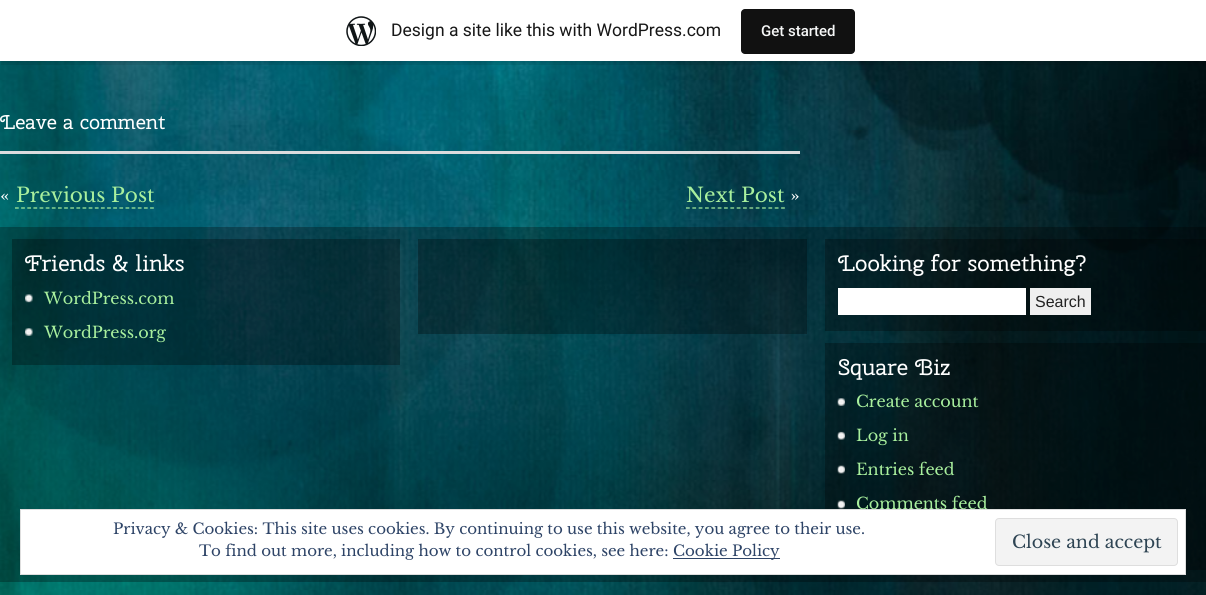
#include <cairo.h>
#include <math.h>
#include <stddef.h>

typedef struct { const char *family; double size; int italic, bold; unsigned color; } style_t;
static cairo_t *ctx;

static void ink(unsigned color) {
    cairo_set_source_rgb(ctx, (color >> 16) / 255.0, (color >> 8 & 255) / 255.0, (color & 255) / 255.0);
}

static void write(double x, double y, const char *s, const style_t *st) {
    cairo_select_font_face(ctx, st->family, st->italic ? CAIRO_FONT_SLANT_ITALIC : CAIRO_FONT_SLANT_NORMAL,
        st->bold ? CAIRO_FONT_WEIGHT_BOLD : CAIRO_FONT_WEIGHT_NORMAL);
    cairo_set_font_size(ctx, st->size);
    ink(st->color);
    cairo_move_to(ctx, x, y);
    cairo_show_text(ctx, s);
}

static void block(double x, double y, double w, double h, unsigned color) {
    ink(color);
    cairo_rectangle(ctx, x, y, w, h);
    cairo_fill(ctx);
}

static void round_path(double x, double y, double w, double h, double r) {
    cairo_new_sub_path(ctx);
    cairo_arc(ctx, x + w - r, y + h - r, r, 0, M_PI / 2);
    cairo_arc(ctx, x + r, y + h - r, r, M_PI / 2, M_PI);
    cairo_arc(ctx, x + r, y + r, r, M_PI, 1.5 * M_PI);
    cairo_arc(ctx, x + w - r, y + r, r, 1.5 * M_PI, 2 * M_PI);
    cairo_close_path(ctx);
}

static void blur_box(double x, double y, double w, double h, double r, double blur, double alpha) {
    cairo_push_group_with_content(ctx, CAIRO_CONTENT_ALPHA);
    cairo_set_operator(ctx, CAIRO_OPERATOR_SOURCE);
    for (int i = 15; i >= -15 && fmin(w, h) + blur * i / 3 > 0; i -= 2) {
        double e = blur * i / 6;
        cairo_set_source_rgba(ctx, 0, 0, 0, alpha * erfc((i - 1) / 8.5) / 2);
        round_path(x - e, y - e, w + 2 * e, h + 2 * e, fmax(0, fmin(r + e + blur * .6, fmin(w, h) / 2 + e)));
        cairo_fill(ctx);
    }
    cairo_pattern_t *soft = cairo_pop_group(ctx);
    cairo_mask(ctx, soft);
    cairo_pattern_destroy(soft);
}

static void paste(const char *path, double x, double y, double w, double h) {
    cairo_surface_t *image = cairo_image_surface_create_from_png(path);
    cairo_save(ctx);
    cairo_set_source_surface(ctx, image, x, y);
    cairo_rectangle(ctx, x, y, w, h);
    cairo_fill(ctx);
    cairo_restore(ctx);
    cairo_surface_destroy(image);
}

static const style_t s1 = {"Roboto", 17.5, 0, 0, 0x171717};
static const style_t s2 = {"Roboto Medium", 15, 0, 0, 0xf6f7f7};
static const style_t s3 = {"Cherry Swash", 20, 0, 0, 0xffffff};
static const style_t s4 = {"Libre Baskerville", 20, 0, 0, 0xffffff};
static const style_t s5 = {"Libre Baskerville", 20, 0, 0, 0xa8ef9d};
static const style_t s6 = {"Cherry Swash", 22.4, 0, 0, 0xffffff};
static const style_t s7 = {"Libre Baskerville", 16, 0, 0, 0xa8ef9d};
static const style_t s8 = {"Liberation Sans", 16, 0, 0, 0x222222};
static const style_t s9 = {"Libre Baskerville", 15, 0, 0, 0x2e4467};
static const style_t s10 = {"Libre Baskerville", 17.5, 0, 0, 0x2e4453};

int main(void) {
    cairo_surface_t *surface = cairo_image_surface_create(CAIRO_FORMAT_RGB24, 1206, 595);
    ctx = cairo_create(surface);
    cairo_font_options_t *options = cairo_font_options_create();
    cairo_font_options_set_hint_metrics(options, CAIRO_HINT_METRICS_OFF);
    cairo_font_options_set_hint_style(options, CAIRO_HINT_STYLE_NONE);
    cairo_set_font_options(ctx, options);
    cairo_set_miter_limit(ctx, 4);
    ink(0xffffff);
    cairo_paint(ctx);
    paste("pic1.png", 0, 61, 1206, 534);
    ink(0x000000);
    blur_box(0, 1, 1206, 62, 0, 1, 0.05);
    cairo_set_source_rgba(ctx, 0, 0, 0, 0.08);
    cairo_new_path(ctx);
    cairo_move_to(ctx, 1, 61);
    cairo_line_to(ctx, 1, 65);
    cairo_line_to(ctx, 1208, 65);
    cairo_line_to(ctx, 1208, 4);
    cairo_line_to(ctx, 1206, 4);
    cairo_line_to(ctx, 1206, 61);
    cairo_close_path(ctx);
    cairo_fill(ctx);
    block(0, 0, 1206, 61, 0xffffff);
    paste("pic2.png", 346, 16, 30, 30);
    write(391, 36, "Design a site like this with WordPress.com", &s1);
    ink(0x111111);
    round_path(741, 9, 114, 45, 4);
    cairo_fill(ctx);
    write(761, 36, "Get started", &s2);
    write(0, 129, "Leave a comment", &s3);
    block(0, 151, 800, 3, 0xdcdcde);
    write(0, 202, "«", &s4);
    write(16, 202, "Previous Post", &s5);
    cairo_new_path(ctx);
    cairo_move_to(ctx, 15, 208);
    cairo_line_to(ctx, 154, 208);
    cairo_set_line_width(ctx, 1.2);
    cairo_set_dash(ctx, (double[]){3.75, 2.39}, 2, 0);
    cairo_stroke(ctx);
    write(686, 202, "Next Post", &s5);
    cairo_new_path(ctx);
    cairo_move_to(ctx, 686, 208);
    cairo_line_to(ctx, 785, 208);
    cairo_set_dash(ctx, (double[]){3.75, 2.59}, 2, 0);
    cairo_stroke(ctx);
    write(790, 202, "»", &s4);
    cairo_set_source_rgba(ctx, 0, 0, 0, 0.3);
    cairo_rectangle(ctx, 0, 227, 1206, 355);
    cairo_fill(ctx);
    cairo_rectangle(ctx, 12, 239, 388, 126);
    cairo_fill(ctx);
    write(25, 271, "Friends & links", &s6);
    paste("pic3.png", 25, 294, 8, 9);
    write(44, 304, "WordPress.com", &s7);
    paste("pic4.png", 25, 328, 8, 8);
    write(44, 338, "WordPress.org", &s7);
    cairo_set_source_rgba(ctx, 0, 0, 0, 0.3);
    cairo_rectangle(ctx, 418, 239, 389, 95);
    cairo_fill(ctx);
    cairo_rectangle(ctx, 825, 239, 381, 92);
    cairo_fill(ctx);
    write(838, 271, "Looking for something?", &s6);
    block(838, 288, 188, 27, 0xffffff);
    block(1030, 288, 61, 27, 0xefefef);
    write(1035, 307, "Search", &s8);
    cairo_set_source_rgba(ctx, 0, 0, 0, 0.3);
    cairo_rectangle(ctx, 825, 343, 381, 227);
    cairo_fill(ctx);
    write(838, 375, "Square Biz", &s6);
    paste("pic5.png", 837, 398, 8, 8);
    write(856, 407, "Create account", &s7);
    paste("pic6.png", 837, 431, 8, 9);
    write(856, 441, "Log in", &s7);
    paste("pic7.png", 837, 465, 8, 9);
    write(856, 475, "Entries feed", &s7);
    paste("pic8.png", 837, 500, 8, 9);
    write(856, 509, "Comments feed", &s7);
    ink(0xffffff);
    cairo_rectangle(ctx, 20.5, 509.5, 1165, 65);
    cairo_fill_preserve(ctx);
    ink(0xdedede);
    cairo_set_line_width(ctx, 1);
    cairo_set_dash(ctx, NULL, 0, 0);
    cairo_stroke(ctx);
    write(113, 534, "Privacy & Cookies: This site uses cookies. By continuing to use this website, you agree to their use.", &s9);
    write(199, 556, "To find out more, including how to control cookies, see here:", &s9);
    block(673, 558, 107, 1, 0x2e4467);
    write(673, 556, "Cookie Policy", &s9);
    ink(0xf3f3f3);
    round_path(995.5, 518.5, 182, 47, 3.5);
    cairo_fill_preserve(ctx);
    ink(0xdedede);
    cairo_stroke(ctx);
    write(1012, 548, "Close and accept", &s10);
    cairo_surface_write_to_png(surface, "screenshot.png");
    cairo_font_options_destroy(options);
    cairo_destroy(ctx);
    cairo_surface_destroy(surface);
    return 0;
}
